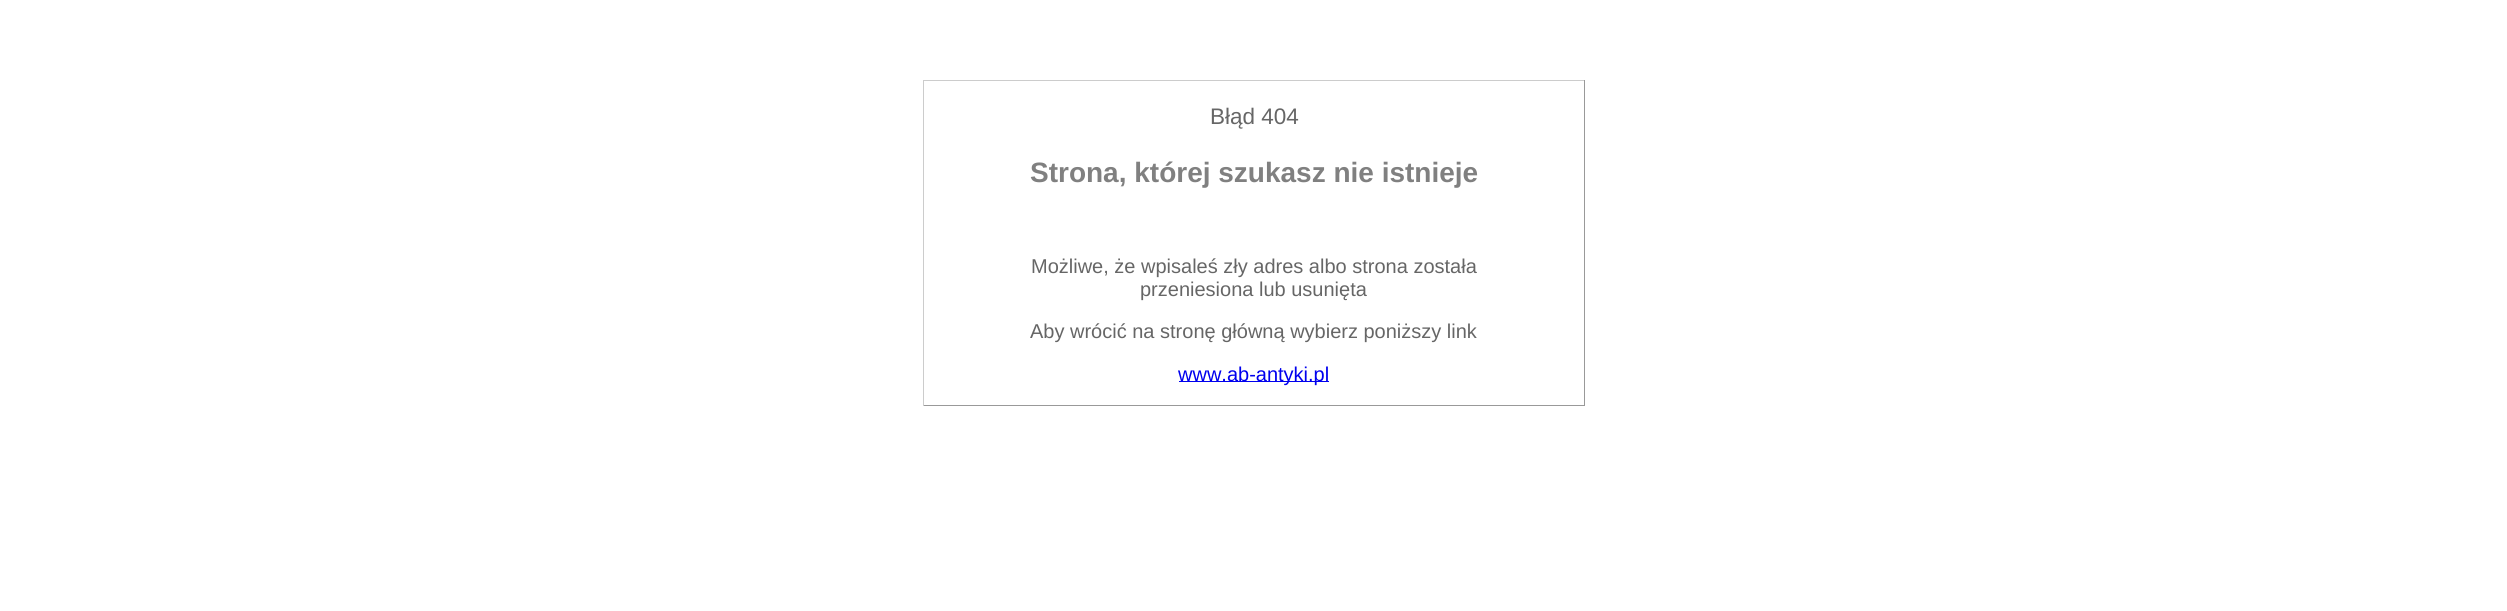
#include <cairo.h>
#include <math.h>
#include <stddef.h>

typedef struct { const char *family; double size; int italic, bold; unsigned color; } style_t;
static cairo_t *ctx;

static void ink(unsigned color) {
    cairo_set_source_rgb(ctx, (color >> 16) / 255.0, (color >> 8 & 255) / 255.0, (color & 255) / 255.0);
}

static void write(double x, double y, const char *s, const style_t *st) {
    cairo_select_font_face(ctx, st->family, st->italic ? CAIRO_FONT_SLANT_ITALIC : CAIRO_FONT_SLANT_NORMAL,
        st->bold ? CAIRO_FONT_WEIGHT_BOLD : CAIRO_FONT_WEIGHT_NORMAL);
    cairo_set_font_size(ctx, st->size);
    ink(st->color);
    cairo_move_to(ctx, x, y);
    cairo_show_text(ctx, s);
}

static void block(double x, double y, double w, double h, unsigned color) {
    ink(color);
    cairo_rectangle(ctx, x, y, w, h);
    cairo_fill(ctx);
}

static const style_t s1 = {"Liberation Sans", 22.5, 0, 0, 0x666666};
static const style_t s2 = {"Liberation Sans", 28, 0, 1, 0x808080};
static const style_t s3 = {"Liberation Sans", 20, 0, 0, 0x666666};
static const style_t s4 = {"Liberation Sans", 20, 0, 0, 0x0000ee};

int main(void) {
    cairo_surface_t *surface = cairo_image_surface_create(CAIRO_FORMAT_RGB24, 2507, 611);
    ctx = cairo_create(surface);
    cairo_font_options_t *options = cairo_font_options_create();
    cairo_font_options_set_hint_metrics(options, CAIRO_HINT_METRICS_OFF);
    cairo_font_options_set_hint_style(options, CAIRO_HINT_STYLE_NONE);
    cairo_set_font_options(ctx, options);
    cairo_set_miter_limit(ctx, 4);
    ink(0xffffff);
    cairo_paint(ctx);
    block(923, 80, 662, 1, 0xcccccc);
    block(1584, 80, 1, 326, 0x999999);
    block(923, 405, 662, 1, 0x999999);
    block(923, 80, 1, 326, 0xcccccc);
    write(1210, 124, "Błąd 404", &s1);
    write(1030, 182, "Strona, której szukasz nie istnieje", &s2);
    write(1031, 273, "Możliwe, że wpisaleś zły adres albo strona została", &s3);
    write(1140, 296, "przeniesiona lub usunięta", &s3);
    write(1030, 338, "Aby wrócić na stronę główną wybierz poniższy link", &s3);
    block(1179, 381, 150, 1, 0x0000ee);
    write(1178, 381, "www.ab-antyki.pl", &s4);
    cairo_surface_write_to_png(surface, "screenshot.png");
    cairo_font_options_destroy(options);
    cairo_destroy(ctx);
    cairo_surface_destroy(surface);
    return 0;
}
